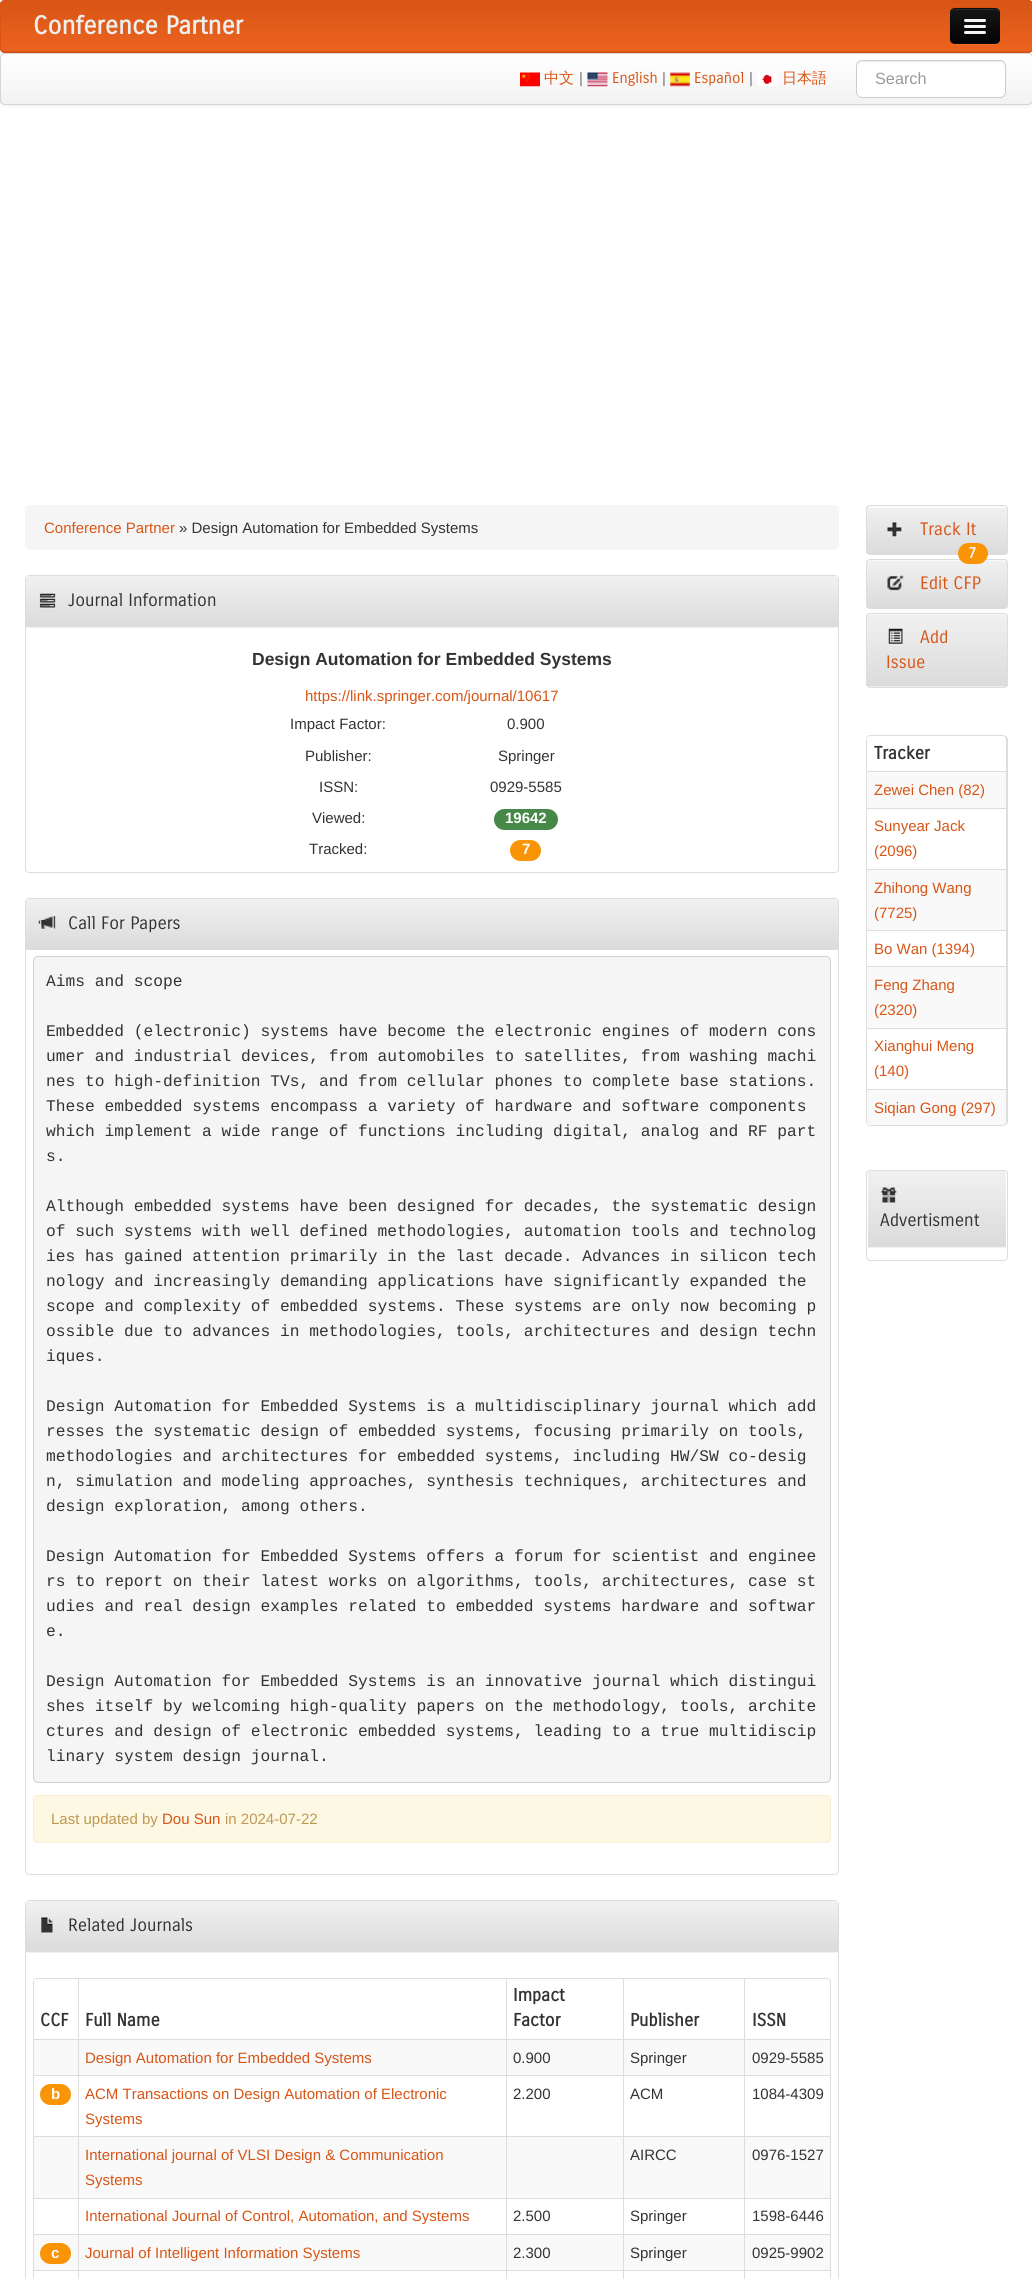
#include <cairo.h>
#include <math.h>
#include <stddef.h>

typedef struct { const char *family; double size; int italic, bold; unsigned color; } style_t;
static cairo_t *ctx;

static void ink(unsigned color) {
    cairo_set_source_rgb(ctx, (color >> 16) / 255.0, (color >> 8 & 255) / 255.0, (color & 255) / 255.0);
}

static void write(double x, double y, const char *s, const style_t *st) {
    cairo_select_font_face(ctx, st->family, st->italic ? CAIRO_FONT_SLANT_ITALIC : CAIRO_FONT_SLANT_NORMAL,
        st->bold ? CAIRO_FONT_WEIGHT_BOLD : CAIRO_FONT_WEIGHT_NORMAL);
    cairo_set_font_size(ctx, st->size);
    ink(st->color);
    cairo_move_to(ctx, x, y);
    cairo_show_text(ctx, s);
}

static void block(double x, double y, double w, double h, unsigned color) {
    ink(color);
    cairo_rectangle(ctx, x, y, w, h);
    cairo_fill(ctx);
}

static void round_path(double x, double y, double w, double h, double r) {
    cairo_new_sub_path(ctx);
    cairo_arc(ctx, x + w - r, y + h - r, r, 0, M_PI / 2);
    cairo_arc(ctx, x + r, y + h - r, r, M_PI / 2, M_PI);
    cairo_arc(ctx, x + r, y + r, r, M_PI, 1.5 * M_PI);
    cairo_arc(ctx, x + w - r, y + r, r, 1.5 * M_PI, 2 * M_PI);
    cairo_close_path(ctx);
}

static void blur_box(double x, double y, double w, double h, double r, double blur, double alpha) {
    cairo_push_group_with_content(ctx, CAIRO_CONTENT_ALPHA);
    cairo_set_operator(ctx, CAIRO_OPERATOR_SOURCE);
    for (int i = 15; i >= -15 && fmin(w, h) + blur * i / 3 > 0; i -= 2) {
        double e = blur * i / 6;
        cairo_set_source_rgba(ctx, 0, 0, 0, alpha * erfc((i - 1) / 8.5) / 2);
        round_path(x - e, y - e, w + 2 * e, h + 2 * e, fmax(0, fmin(r + e + blur * .6, fmin(w, h) / 2 + e)));
        cairo_fill(ctx);
    }
    cairo_pattern_t *soft = cairo_pop_group(ctx);
    cairo_mask(ctx, soft);
    cairo_pattern_destroy(soft);
}

static void paste(const char *path, double x, double y, double w, double h) {
    cairo_surface_t *image = cairo_image_surface_create_from_png(path);
    cairo_save(ctx);
    cairo_set_source_surface(ctx, image, x, y);
    cairo_rectangle(ctx, x, y, w, h);
    cairo_fill(ctx);
    cairo_restore(ctx);
    cairo_surface_destroy(image);
}

static const style_t s1 = {"Carrois Gothic", 25, 0, 1, 0xeeeeee};
static const style_t s2 = {"WenQuanYi Zen Hei Medium", 15, 0, 0, 0xd85515};
static const style_t s3 = {"Liberation Sans", 15, 0, 0, 0x777777};
static const style_t s4 = {"Carrois Gothic", 15, 0, 0, 0xd85515};
static const style_t s5 = {"Liberation Sans", 16.25, 0, 0, 0x999999};
static const style_t s6 = {"Liberation Sans", 15, 0, 0, 0xd85515};
static const style_t s7 = {"Liberation Sans", 15, 0, 0, 0x333333};
static const style_t s8 = {"Carrois Gothic", 17.5, 0, 0, 0x333333};
static const style_t s9 = {"Liberation Sans", 17.5, 0, 1, 0x333333};
static const style_t s10 = {"Liberation Sans", 15, 0, 1, 0xffffff};
static const style_t s11 = {"Liberation Mono", 16.25, 0, 0, 0x333333};
static const style_t s12 = {"Liberation Sans", 15, 0, 0, 0xc09853};
static const style_t s13 = {"Carrois Gothic", 17.5, 0, 1, 0x333333};
static const style_t s14 = {"Carrois Gothic", 17.5, 0, 0, 0xd85515};
static const style_t s15 = {"Carrois Gothic", 15, 0, 1, 0xffffff};

int main(void) {
    cairo_surface_t *surface = cairo_image_surface_create(CAIRO_FORMAT_RGB24, 1032, 2279);
    ctx = cairo_create(surface);
    cairo_font_options_t *options = cairo_font_options_create();
    cairo_font_options_set_hint_metrics(options, CAIRO_HINT_METRICS_OFF);
    cairo_font_options_set_hint_style(options, CAIRO_HINT_STYLE_NONE);
    cairo_set_font_options(ctx, options);
    cairo_set_miter_limit(ctx, 4);
    cairo_pattern_t *gradient;
    ink(0xffffff);
    cairo_paint(ctx);
    ink(0x000000);
    blur_box(0, 1, 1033, 53, 5, 2.5, 0.07);
    ink(0xd85515);
    round_path(0, 0, 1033, 53, 5);
    cairo_fill(ctx);
    cairo_save(ctx);
    round_path(0, 0, 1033, 53, 5);
    cairo_clip(ctx);
    gradient = cairo_pattern_create_linear(516, 1.2, 516, 51);
    cairo_pattern_add_color_stop_rgba(gradient, 0, 0.847, 0.333, 0.082, 1);
    cairo_pattern_add_color_stop_rgba(gradient, 1, 0.925, 0.388, 0.125, 1);
    cairo_set_source(ctx, gradient);
    cairo_pattern_destroy(gradient);
    cairo_rectangle(ctx, 0, 1, 1032, 50);
    cairo_fill(ctx);
    cairo_restore(ctx);
    round_path(0.5, 0.5, 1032, 52, 4.5);
    cairo_set_line_width(ctx, 1);
    cairo_stroke(ctx);
    write(33, 34, "Conference Partner", &s1);
    ink(0x000000);
    blur_box(0, 54, 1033, 52, 5, 2.5, 0.07);
    ink(0xeb6d30);
    cairo_new_path(ctx);
    cairo_move_to(ctx, 950, 39);
    cairo_curve_to(ctx, 950, 46, 956, 45, 962, 45);
    cairo_line_to(ctx, 988, 45);
    cairo_curve_to(ctx, 994, 45, 1000, 46, 1000, 39);
    cairo_curve_to(ctx, 1000, 42, 998, 44, 995, 44);
    cairo_line_to(ctx, 955, 44);
    cairo_curve_to(ctx, 952, 44, 950, 42, 950, 39);
    cairo_close_path(ctx);
    cairo_fill(ctx);
    ink(0x0e0e0e);
    round_path(950, 8, 50, 36, 5);
    cairo_fill(ctx);
    cairo_save(ctx);
    round_path(950, 8, 50, 36, 5);
    cairo_clip(ctx);
    gradient = cairo_pattern_create_linear(975, 9, 975, 43);
    cairo_pattern_add_color_stop_rgba(gradient, 0, 0.082, 0.082, 0.082, 1);
    cairo_pattern_add_color_stop_rgba(gradient, 1, 0.016, 0.016, 0.016, 1);
    cairo_set_source(ctx, gradient);
    cairo_pattern_destroy(gradient);
    cairo_rectangle(ctx, 950, 9, 50, 34);
    cairo_fill(ctx);
    cairo_restore(ctx);
    ink(0x2c2c2c);
    cairo_new_path(ctx);
    cairo_move_to(ctx, 955, 10);
    cairo_line_to(ctx, 995, 10);
    cairo_curve_to(ctx, 997, 10, 999, 12, 999, 14);
    cairo_curve_to(ctx, 999, 8, 993, 9, 988, 9);
    cairo_line_to(ctx, 962, 9);
    cairo_curve_to(ctx, 957, 9, 951, 8, 951, 14);
    cairo_curve_to(ctx, 951, 12, 953, 10, 955, 10);
    cairo_close_path(ctx);
    cairo_fill(ctx);
    cairo_new_path(ctx);
    cairo_move_to(ctx, 998, 42);
    cairo_curve_to(ctx, 997.5, 42.5, 996, 43, 995, 43);
    cairo_line_to(ctx, 955, 43);
    cairo_curve_to(ctx, 954, 43, 952.5, 42.5, 952, 42);
    cairo_set_source_rgba(ctx, 0, 0, 0, 0.25);
    cairo_set_line_width(ctx, 1.2);
    cairo_stroke(ctx);
    cairo_new_path(ctx);
    cairo_move_to(ctx, 952, 42);
    cairo_curve_to(ctx, 949.5, 39, 950.5, 29, 950.5, 25.5);
    cairo_line_to(ctx, 950.5, 17);
    cairo_curve_to(ctx, 950.5, 13.5, 950, 9, 954, 8);
    cairo_line_to(ctx, 996, 8);
    cairo_curve_to(ctx, 1000, 9, 999.5, 13.5, 999.5, 17);
    cairo_line_to(ctx, 999.5, 25.5);
    cairo_curve_to(ctx, 999.5, 29, 1000.5, 39, 998, 42);
    cairo_set_source_rgba(ctx, 0, 0, 0, 0.1);
    cairo_stroke(ctx);
    ink(0x0b0b0b);
    cairo_new_path(ctx);
    cairo_move_to(ctx, 964, 21);
    cairo_curve_to(ctx, 963, 23.5, 968, 23, 968.5, 23);
    cairo_line_to(ctx, 981.5, 23);
    cairo_curve_to(ctx, 982, 23, 987, 23.5, 986, 21);
    cairo_curve_to(ctx, 985, 21.5, 965, 21.5, 964, 21);
    cairo_close_path(ctx);
    cairo_fill(ctx);
    ink(0xf5f5f5);
    round_path(964, 19, 22, 3, 1.5);
    cairo_fill(ctx);
    ink(0x080808);
    cairo_new_path(ctx);
    cairo_move_to(ctx, 964, 27);
    cairo_curve_to(ctx, 963.5, 29.5, 968, 29, 968.5, 29);
    cairo_line_to(ctx, 981.5, 29);
    cairo_curve_to(ctx, 982, 29, 986.5, 29.5, 986, 27);
    cairo_curve_to(ctx, 985, 28, 965, 28, 964, 27);
    cairo_close_path(ctx);
    cairo_fill(ctx);
    ink(0xf5f5f5);
    round_path(964, 25, 22, 3, 1.5);
    cairo_fill(ctx);
    round_path(964, 31, 22, 3, 1.5);
    cairo_fill(ctx);
    cairo_save(ctx);
    round_path(0, 53, 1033, 52, 5);
    cairo_clip(ctx);
    gradient = cairo_pattern_create_linear(516, 54, 516, 104);
    cairo_pattern_add_color_stop_rgba(gradient, 0, 1, 1, 1, 1);
    cairo_pattern_add_color_stop_rgba(gradient, 1, 0.949, 0.949, 0.949, 1);
    cairo_set_source(ctx, gradient);
    cairo_pattern_destroy(gradient);
    cairo_rectangle(ctx, 0, 54, 1032, 50);
    cairo_fill(ctx);
    cairo_restore(ctx);
    round_path(0.5, 53.5, 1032, 51, 4.5);
    ink(0xd4d4d4);
    cairo_set_line_width(ctx, 1);
    cairo_stroke(ctx);
    paste("pic1.png", 520, 72, 20, 15);
    write(544, 83, "中文", &s2);
    write(579, 83, "|", &s3);
    paste("pic2.png", 587, 72, 21, 15);
    write(612, 83, "English", &s4);
    write(662, 83, "|", &s3);
    paste("pic3.png", 670, 72, 20, 15);
    write(694, 83, "Español", &s4);
    write(749, 83, "|", &s3);
    paste("pic4.png", 757, 73, 21, 13);
    write(782, 83, "日本語", &s2);
    ink(0xffffff);
    round_path(856, 60, 150, 38, 6);
    cairo_fill(ctx);
    ink(0xececec);
    cairo_new_path(ctx);
    cairo_move_to(ctx, 862, 62);
    cairo_line_to(ctx, 1000, 62);
    cairo_curve_to(ctx, 1003, 62, 1005, 65, 1005, 68);
    cairo_line_to(ctx, 1005, 66);
    cairo_curve_to(ctx, 1005, 63, 1003, 61, 1000, 61);
    cairo_line_to(ctx, 863, 61);
    cairo_curve_to(ctx, 860, 61, 858, 63, 858, 66);
    cairo_line_to(ctx, 858, 68);
    cairo_curve_to(ctx, 858, 65, 860, 62, 862, 62);
    cairo_close_path(ctx);
    cairo_fill(ctx);
    round_path(856.5, 60.5, 149, 37, 5.5);
    ink(0xcccccc);
    cairo_stroke(ctx);
    write(875, 84, "Search", &s5);
    ink(0xf5f5f5);
    round_path(25, 505, 814, 45, 5);
    cairo_fill(ctx);
    write(44, 533, "Conference Partner", &s6);
    write(179, 533, "» Design Automation for Embedded Systems", &s7);
    round_path(25.5, 575.5, 813, 297, 3.5);
    ink(0xdddddd);
    cairo_stroke(ctx);
    block(26, 627, 812, 1, 0xf1f1f1);
    gradient = cairo_pattern_create_linear(432, 576, 432, 626);
    cairo_pattern_add_color_stop_rgba(gradient, 0, 0.945, 0.945, 0.945, 1);
    cairo_pattern_add_color_stop_rgba(gradient, 1, 0.859, 0.859, 0.859, 1);
    cairo_set_source(ctx, gradient);
    cairo_pattern_destroy(gradient);
    cairo_rectangle(ctx, 26, 576, 812, 50);
    cairo_fill(ctx);
    block(26, 626, 812, 1, 0xdddddd);
    paste("pic5.png", 39, 593, 17, 16);
    write(68, 606, "Journal Information", &s8);
    write(252, 665, "Design Automation for Embedded Systems", &s9);
    write(305, 701, "https://link.springer.com/journal/10617", &s6);
    write(290, 729, "Impact Factor:", &s7);
    write(507, 729, "0.900", &s7);
    write(305, 761, "Publisher:", &s7);
    write(498, 761, "Springer", &s7);
    write(319, 792, "ISSN:", &s7);
    write(490, 792, "0929-5585", &s7);
    write(312, 823, "Viewed:", &s7);
    ink(0x468847);
    round_path(494, 809, 64, 21, 10.5);
    cairo_fill(ctx);
    write(505, 823, "19642", &s10);
    write(309, 854, "Tracked:", &s7);
    ink(0xf89406);
    round_path(510, 840, 31, 21, 10.5);
    cairo_fill(ctx);
    write(522, 854, "7", &s10);
    round_path(25.5, 898.5, 813, 976, 3.5);
    ink(0xdddddd);
    cairo_stroke(ctx);
    gradient = cairo_pattern_create_linear(432, 899, 432, 949);
    cairo_pattern_add_color_stop_rgba(gradient, 0, 0.945, 0.945, 0.945, 1);
    cairo_pattern_add_color_stop_rgba(gradient, 1, 0.859, 0.859, 0.859, 1);
    cairo_set_source(ctx, gradient);
    cairo_pattern_destroy(gradient);
    cairo_rectangle(ctx, 26, 899, 812, 50);
    cairo_fill(ctx);
    block(26, 949, 812, 1, 0xdddddd);
    paste("pic6.png", 38, 916, 18, 14);
    write(68, 929, "Call For Papers", &s8);
    ink(0xf5f5f5);
    round_path(33, 956, 798, 827, 5);
    cairo_fill(ctx);
    round_path(33.5, 956.5, 797, 826, 4.5);
    cairo_set_source_rgba(ctx, 0, 0, 0, 0.15);
    cairo_stroke(ctx);
    write(46, 986, "Aims and scope", &s11);
    write(46, 1036, "Embedded (electronic) systems have become the electronic engines of modern cons", &s11);
    write(46, 1061, "umer and industrial devices, from automobiles to satellites, from washing machi", &s11);
    write(46, 1086, "nes to high-definition TVs, and from cellular phones to complete base stations.", &s11);
    write(46, 1111, "These embedded systems encompass a variety of hardware and software components", &s11);
    write(46, 1136, "which implement a wide range of functions including digital, analog and RF part", &s11);
    write(46, 1161, "s.", &s11);
    write(46, 1211, "Although embedded systems have been designed for decades, the systematic design", &s11);
    write(46, 1236, "of such systems with well defined methodologies, automation tools and technolog", &s11);
    write(46, 1261, "ies has gained attention primarily in the last decade. Advances in silicon tech", &s11);
    write(46, 1286, "nology and increasingly demanding applications have significantly expanded the", &s11);
    write(46, 1311, "scope and complexity of embedded systems. These systems are only now becoming p", &s11);
    write(46, 1336, "ossible due to advances in methodologies, tools, architectures and design techn", &s11);
    write(46, 1361, "iques.", &s11);
    write(46, 1411, "Design Automation for Embedded Systems is a multidisciplinary journal which add", &s11);
    write(46, 1436, "resses the systematic design of embedded systems, focusing primarily on tools,", &s11);
    write(46, 1461, "methodologies and architectures for embedded systems, including HW/SW co-desig", &s11);
    write(46, 1486, "n, simulation and modeling approaches, synthesis techniques, architectures and", &s11);
    write(46, 1511, "design exploration, among others.", &s11);
    write(46, 1561, "Design Automation for Embedded Systems offers a forum for scientist and enginee", &s11);
    write(46, 1586, "rs to report on their latest works on algorithms, tools, architectures, case st", &s11);
    write(46, 1611, "udies and real design examples related to embedded systems hardware and softwar", &s11);
    write(46, 1636, "e.", &s11);
    write(46, 1686, "Design Automation for Embedded Systems is an innovative journal which distingui", &s11);
    write(46, 1711, "shes itself by welcoming high-quality papers on the methodology, tools, archite", &s11);
    write(46, 1736, "ctures and design of electronic embedded systems, leading to a true multidiscip", &s11);
    write(46, 1761, "linary system design journal.", &s11);
    ink(0xfcf8e3);
    round_path(33.5, 1795.5, 797, 47, 4.5);
    cairo_fill_preserve(ctx);
    ink(0xfbeed5);
    cairo_stroke(ctx);
    write(51, 1824, "Last updated by", &s12);
    write(162, 1824, "Dou Sun", &s6);
    write(225, 1824, "in 2024-07-22", &s12);
    round_path(25.5, 1900.5, 813, 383, 3.5);
    ink(0xdddddd);
    cairo_stroke(ctx);
    block(26, 1952, 812, 1, 0xf1f1f1);
    gradient = cairo_pattern_create_linear(432, 1901, 432, 1951);
    cairo_pattern_add_color_stop_rgba(gradient, 0, 0.945, 0.945, 0.945, 1);
    cairo_pattern_add_color_stop_rgba(gradient, 1, 0.859, 0.859, 0.859, 1);
    cairo_set_source(ctx, gradient);
    cairo_pattern_destroy(gradient);
    cairo_rectangle(ctx, 26, 1901, 812, 50);
    cairo_fill(ctx);
    block(26, 1951, 812, 1, 0xdddddd);
    paste("pic7.png", 41, 1917, 12, 17);
    write(68, 1931, "Related Journals", &s8);
    ink(0xdddddd);
    cairo_set_fill_rule(ctx, CAIRO_FILL_RULE_EVEN_ODD);
    cairo_new_path(ctx);
    cairo_move_to(ctx, 38, 1978);
    cairo_line_to(ctx, 826, 1978);
    cairo_curve_to(ctx, 829, 1978, 831, 1980, 831, 1982);
    cairo_line_to(ctx, 831, 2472);
    cairo_curve_to(ctx, 831, 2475, 829, 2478, 826, 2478);
    cairo_line_to(ctx, 38, 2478);
    cairo_curve_to(ctx, 35, 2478, 32, 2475, 32, 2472);
    cairo_line_to(ctx, 32, 1982);
    cairo_curve_to(ctx, 32, 1980, 35, 1978, 38, 1978);
    cairo_close_path(ctx);
    cairo_move_to(ctx, 38, 1979);
    cairo_line_to(ctx, 826, 1979);
    cairo_curve_to(ctx, 828, 1979, 830, 1980, 830, 1982);
    cairo_line_to(ctx, 830, 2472);
    cairo_curve_to(ctx, 830, 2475, 828, 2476, 826, 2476);
    cairo_line_to(ctx, 38, 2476);
    cairo_curve_to(ctx, 35, 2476, 32, 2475, 32, 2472);
    cairo_line_to(ctx, 32, 1982);
    cairo_curve_to(ctx, 32, 1980, 35, 1979, 38, 1979);
    cairo_close_path(ctx);
    cairo_fill(ctx);
    block(33, 1981, 1, 58, 0xdddddd);
    write(40, 2026, "CCF", &s13);
    block(78, 1979, 1, 60, 0xdddddd);
    write(85, 2026, "Full Name", &s13);
    block(506, 1979, 1, 60, 0xdddddd);
    write(513, 2001, "Impact", &s13);
    write(513, 2026, "Factor", &s13);
    block(623, 1979, 1, 60, 0xdddddd);
    write(630, 2026, "Publisher", &s13);
    block(744, 1979, 1, 60, 0xdddddd);
    write(752, 2026, "ISSN", &s13);
    block(34, 2040, 44, 35, 0xf9f9f9);
    block(33, 2039, 797, 1, 0xdddddd);
    block(33, 2039, 1, 36, 0xdddddd);
    block(79, 2040, 427, 35, 0xf9f9f9);
    block(78, 2039, 1, 36, 0xdddddd);
    write(85, 2063, "Design Automation for Embedded Systems", &s6);
    block(507, 2040, 116, 35, 0xf9f9f9);
    block(506, 2039, 1, 36, 0xdddddd);
    write(513, 2063, "0.900", &s7);
    block(624, 2040, 120, 35, 0xf9f9f9);
    block(623, 2039, 1, 36, 0xdddddd);
    write(630, 2063, "Springer", &s7);
    block(745, 2040, 85, 35, 0xf9f9f9);
    block(744, 2039, 1, 36, 0xdddddd);
    write(752, 2063, "0929-5585", &s7);
    block(33, 2075, 797, 1, 0xdddddd);
    block(33, 2075, 1, 61, 0xdddddd);
    ink(0xf89406);
    round_path(40, 2084, 31, 21, 10.5);
    cairo_fill(ctx);
    write(51, 2099, "b", &s10);
    block(78, 2075, 1, 61, 0xdddddd);
    write(85, 2099, "ACM Transactions on Design Automation of Electronic", &s6);
    write(85, 2124, "Systems", &s6);
    block(506, 2075, 1, 61, 0xdddddd);
    write(513, 2099, "2.200", &s7);
    block(623, 2075, 1, 61, 0xdddddd);
    write(630, 2099, "ACM", &s7);
    block(744, 2075, 1, 61, 0xdddddd);
    write(752, 2099, "1084-4309", &s7);
    block(34, 2137, 44, 61, 0xf9f9f9);
    block(33, 2136, 797, 1, 0xdddddd);
    block(33, 2136, 1, 62, 0xdddddd);
    block(79, 2137, 427, 61, 0xf9f9f9);
    block(78, 2136, 1, 62, 0xdddddd);
    write(85, 2160, "International journal of VLSI Design & Communication", &s6);
    write(85, 2185, "Systems", &s6);
    block(507, 2137, 116, 61, 0xf9f9f9);
    block(506, 2136, 1, 62, 0xdddddd);
    block(624, 2137, 120, 61, 0xf9f9f9);
    block(623, 2136, 1, 62, 0xdddddd);
    write(630, 2160, "AIRCC", &s7);
    block(745, 2137, 85, 61, 0xf9f9f9);
    block(744, 2136, 1, 62, 0xdddddd);
    write(752, 2160, "0976-1527", &s7);
    block(33, 2198, 797, 1, 0xdddddd);
    block(33, 2198, 1, 36, 0xdddddd);
    block(78, 2198, 1, 36, 0xdddddd);
    write(85, 2221, "International Journal of Control, Automation, and Systems", &s6);
    block(506, 2198, 1, 36, 0xdddddd);
    write(513, 2221, "2.500", &s7);
    block(623, 2198, 1, 36, 0xdddddd);
    write(630, 2221, "Springer", &s7);
    block(744, 2198, 1, 36, 0xdddddd);
    write(752, 2221, "1598-6446", &s7);
    block(34, 2235, 44, 35, 0xf9f9f9);
    block(33, 2234, 797, 1, 0xdddddd);
    block(33, 2234, 1, 36, 0xdddddd);
    ink(0xf89406);
    round_path(40, 2243, 31, 21, 10.5);
    cairo_fill(ctx);
    write(51, 2258, "c", &s10);
    block(79, 2235, 427, 35, 0xf9f9f9);
    block(78, 2234, 1, 36, 0xdddddd);
    write(85, 2258, "Journal of Intelligent Information Systems", &s6);
    block(507, 2235, 116, 35, 0xf9f9f9);
    block(506, 2234, 1, 36, 0xdddddd);
    write(513, 2258, "2.300", &s7);
    block(624, 2235, 120, 35, 0xf9f9f9);
    block(623, 2234, 1, 36, 0xdddddd);
    write(630, 2258, "Springer", &s7);
    block(745, 2235, 85, 35, 0xf9f9f9);
    block(744, 2234, 1, 36, 0xdddddd);
    write(752, 2258, "0925-9902", &s7);
    block(33, 2270, 797, 1, 0xdddddd);
    block(33, 2270, 1, 9, 0xdddddd);
    block(78, 2270, 1, 9, 0xdddddd);
    block(506, 2270, 1, 9, 0xdddddd);
    block(623, 2270, 1, 9, 0xdddddd);
    block(744, 2270, 1, 9, 0xdddddd);
    cairo_save(ctx);
    cairo_set_fill_rule(ctx, CAIRO_FILL_RULE_WINDING);
    round_path(866, 505, 142, 50, 4);
    cairo_clip(ctx);
    gradient = cairo_pattern_create_linear(937, 506, 937, 554);
    cairo_pattern_add_color_stop_rgba(gradient, 0, 0.945, 0.945, 0.945, 1);
    cairo_pattern_add_color_stop_rgba(gradient, 1, 0.859, 0.859, 0.859, 1);
    cairo_set_source(ctx, gradient);
    cairo_pattern_destroy(gradient);
    cairo_rectangle(ctx, 866, 506, 142, 48);
    cairo_fill(ctx);
    cairo_restore(ctx);
    ink(0xf9f9f9);
    cairo_set_fill_rule(ctx, CAIRO_FILL_RULE_WINDING);
    cairo_new_path(ctx);
    cairo_move_to(ctx, 870, 508);
    cairo_line_to(ctx, 1004, 508);
    cairo_curve_to(ctx, 1005, 508, 1006, 509, 1006, 510);
    cairo_line_to(ctx, 1006, 508);
    cairo_curve_to(ctx, 1006, 507, 1005, 506, 1004, 506);
    cairo_line_to(ctx, 870, 506);
    cairo_curve_to(ctx, 869, 506, 868, 507, 868, 508);
    cairo_line_to(ctx, 868, 510);
    cairo_curve_to(ctx, 868, 509, 869, 508, 870, 508);
    cairo_close_path(ctx);
    cairo_fill(ctx);
    round_path(866.5, 505.5, 141, 49, 3.5);
    ink(0xdddddd);
    cairo_stroke(ctx);
    paste("pic8.png", 887, 522, 15, 15);
    write(920, 535, "Track It", &s14);
    cairo_save(ctx);
    round_path(866, 559, 142, 50, 4);
    cairo_clip(ctx);
    gradient = cairo_pattern_create_linear(937, 560, 937, 608);
    cairo_pattern_add_color_stop_rgba(gradient, 0, 0.945, 0.945, 0.945, 1);
    cairo_pattern_add_color_stop_rgba(gradient, 1, 0.859, 0.859, 0.859, 1);
    cairo_set_source(ctx, gradient);
    cairo_pattern_destroy(gradient);
    cairo_rectangle(ctx, 866, 560, 142, 48);
    cairo_fill(ctx);
    cairo_restore(ctx);
    ink(0xf9f9f9);
    cairo_new_path(ctx);
    cairo_move_to(ctx, 870, 561);
    cairo_line_to(ctx, 1004, 561);
    cairo_curve_to(ctx, 1005, 561, 1006, 562, 1006, 564);
    cairo_line_to(ctx, 1006, 562);
    cairo_curve_to(ctx, 1006, 561, 1005, 560, 1004, 560);
    cairo_line_to(ctx, 870, 560);
    cairo_curve_to(ctx, 869, 560, 868, 561, 868, 562);
    cairo_line_to(ctx, 868, 564);
    cairo_curve_to(ctx, 868, 562, 869, 561, 870, 561);
    cairo_close_path(ctx);
    cairo_fill(ctx);
    round_path(866.5, 559.5, 141, 49, 3.5);
    ink(0xdddddd);
    cairo_stroke(ctx);
    ink(0xf89406);
    round_path(958, 543, 30, 21, 10.5);
    cairo_fill(ctx);
    write(968, 558, "7", &s15);
    paste("pic9.png", 887, 575, 17, 16);
    write(920, 589, "Edit CFP", &s14);
    ink(0xf1f1f1);
    round_path(866, 613, 142, 75, 4);
    cairo_fill(ctx);
    cairo_save(ctx);
    round_path(866, 613, 142, 75, 4);
    cairo_clip(ctx);
    gradient = cairo_pattern_create_linear(937, 614, 937, 686);
    cairo_pattern_add_color_stop_rgba(gradient, 0, 0.945, 0.945, 0.945, 1);
    cairo_pattern_add_color_stop_rgba(gradient, 1, 0.859, 0.859, 0.859, 1);
    cairo_set_source(ctx, gradient);
    cairo_pattern_destroy(gradient);
    cairo_rectangle(ctx, 866, 614, 142, 72);
    cairo_fill(ctx);
    cairo_restore(ctx);
    ink(0xf9f9f9);
    cairo_new_path(ctx);
    cairo_move_to(ctx, 870, 615);
    cairo_line_to(ctx, 1004, 615);
    cairo_curve_to(ctx, 1005, 615, 1006, 616, 1006, 618);
    cairo_line_to(ctx, 1006, 616);
    cairo_curve_to(ctx, 1006, 615, 1005, 614, 1004, 614);
    cairo_line_to(ctx, 870, 614);
    cairo_curve_to(ctx, 869, 614, 868, 615, 868, 616);
    cairo_line_to(ctx, 868, 618);
    cairo_curve_to(ctx, 868, 616, 869, 615, 870, 615);
    cairo_close_path(ctx);
    cairo_fill(ctx);
    round_path(866.5, 613.5, 141, 74, 3.5);
    ink(0xdddddd);
    cairo_stroke(ctx);
    paste("pic10.png", 888, 628, 15, 17);
    write(920, 643, "Add", &s14);
    write(886, 668, "Issue", &s14);
    ink(0xdddddd);
    cairo_set_fill_rule(ctx, CAIRO_FILL_RULE_EVEN_ODD);
    cairo_new_path(ctx);
    cairo_move_to(ctx, 871, 735);
    cairo_line_to(ctx, 1002, 735);
    cairo_curve_to(ctx, 1005, 735, 1008, 737, 1008, 740);
    cairo_line_to(ctx, 1008, 1121);
    cairo_curve_to(ctx, 1008, 1124, 1005, 1126, 1002, 1126);
    cairo_line_to(ctx, 871, 1126);
    cairo_curve_to(ctx, 868, 1126, 866, 1124, 866, 1121);
    cairo_line_to(ctx, 866, 740);
    cairo_curve_to(ctx, 866, 737, 868, 735, 871, 735);
    cairo_close_path(ctx);
    cairo_move_to(ctx, 871, 736);
    cairo_line_to(ctx, 1002, 736);
    cairo_curve_to(ctx, 1005, 736, 1006, 738, 1006, 740);
    cairo_line_to(ctx, 1006, 1121);
    cairo_curve_to(ctx, 1006, 1123, 1005, 1125, 1002, 1125);
    cairo_line_to(ctx, 871, 1125);
    cairo_curve_to(ctx, 868, 1125, 866, 1123, 866, 1121);
    cairo_line_to(ctx, 866, 740);
    cairo_curve_to(ctx, 866, 738, 868, 736, 871, 736);
    cairo_close_path(ctx);
    cairo_fill(ctx);
    block(866, 739, 1, 32, 0xdddddd);
    write(874, 759, "Tracker", &s13);
    block(867, 772, 139, 36, 0xf9f9f9);
    block(866, 771, 140, 1, 0xdddddd);
    block(866, 771, 1, 37, 0xdddddd);
    write(874, 795, "Zewei Chen (82)", &s6);
    block(866, 808, 140, 1, 0xdddddd);
    block(866, 808, 1, 61, 0xdddddd);
    write(874, 831, "Sunyear Jack", &s6);
    write(874, 856, "(2096)", &s6);
    block(867, 870, 139, 60, 0xf9f9f9);
    block(866, 869, 140, 1, 0xdddddd);
    block(866, 869, 1, 61, 0xdddddd);
    write(874, 893, "Zhihong Wang", &s6);
    write(874, 918, "(7725)", &s6);
    block(866, 930, 140, 1, 0xdddddd);
    block(866, 930, 1, 36, 0xdddddd);
    write(874, 954, "Bo Wan (1394)", &s6);
    block(867, 967, 139, 61, 0xf9f9f9);
    block(866, 966, 140, 1, 0xdddddd);
    block(866, 966, 1, 62, 0xdddddd);
    write(874, 990, "Feng Zhang", &s6);
    write(874, 1015, "(2320)", &s6);
    block(866, 1028, 140, 1, 0xdddddd);
    block(866, 1028, 1, 61, 0xdddddd);
    write(874, 1051, "Xianghui Meng", &s6);
    write(874, 1076, "(140)", &s6);
    ink(0xf9f9f9);
    cairo_new_path(ctx);
    cairo_move_to(ctx, 866, 1089);
    cairo_line_to(ctx, 1006, 1089);
    cairo_line_to(ctx, 1006, 1120);
    cairo_curve_to(ctx, 1006, 1123, 1004, 1125, 1001, 1125);
    cairo_line_to(ctx, 871, 1125);
    cairo_curve_to(ctx, 868, 1125, 866, 1123, 866, 1120);
    cairo_close_path(ctx);
    cairo_fill(ctx);
    block(866, 1089, 140, 1, 0xdddddd);
    block(866, 1089, 1, 34, 0xdddddd);
    write(874, 1113, "Siqian Gong (297)", &s6);
    round_path(866.5, 1170.5, 141, 90, 3.5);
    ink(0xdddddd);
    cairo_stroke(ctx);
    block(868, 1247, 138, 1, 0xf1f1f1);
    gradient = cairo_pattern_create_linear(937, 1171, 937, 1246);
    cairo_pattern_add_color_stop_rgba(gradient, 0, 0.945, 0.945, 0.945, 1);
    cairo_pattern_add_color_stop_rgba(gradient, 1, 0.859, 0.859, 0.859, 1);
    cairo_set_source(ctx, gradient);
    cairo_pattern_destroy(gradient);
    cairo_rectangle(ctx, 868, 1171, 138, 75);
    cairo_fill(ctx);
    block(868, 1246, 138, 1, 0xdddddd);
    paste("pic11.png", 881, 1187, 16, 17);
    write(880, 1226, "Advertisment", &s8);
    cairo_surface_write_to_png(surface, "screenshot.png");
    cairo_font_options_destroy(options);
    cairo_destroy(ctx);
    cairo_surface_destroy(surface);
    return 0;
}
